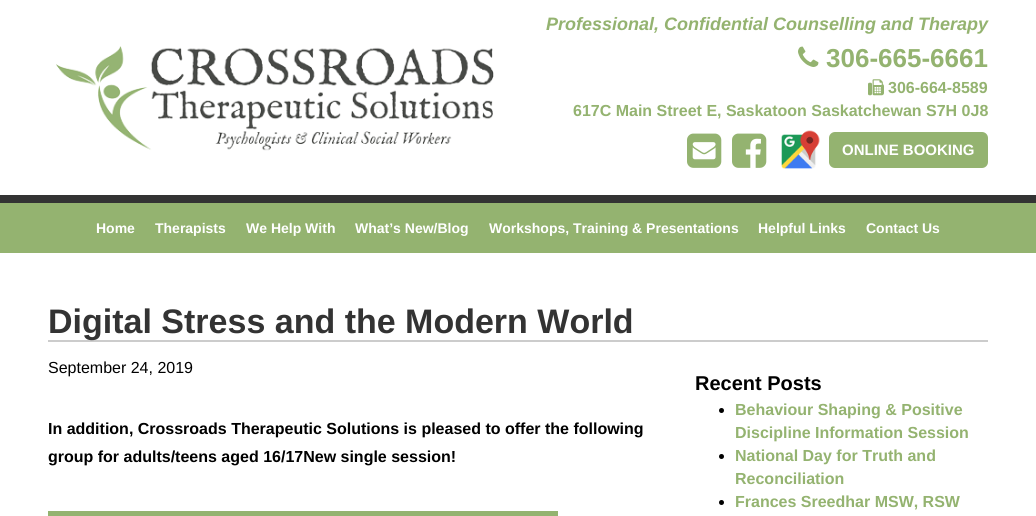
#include <cairo.h>
#include <math.h>
#include <stddef.h>

typedef struct { const char *family; double size; int italic, bold; unsigned color; } style_t;
static cairo_t *ctx;

static void ink(unsigned color) {
    cairo_set_source_rgb(ctx, (color >> 16) / 255.0, (color >> 8 & 255) / 255.0, (color & 255) / 255.0);
}

static void write(double x, double y, const char *s, const style_t *st) {
    cairo_select_font_face(ctx, st->family, st->italic ? CAIRO_FONT_SLANT_ITALIC : CAIRO_FONT_SLANT_NORMAL,
        st->bold ? CAIRO_FONT_WEIGHT_BOLD : CAIRO_FONT_WEIGHT_NORMAL);
    cairo_set_font_size(ctx, st->size);
    ink(st->color);
    cairo_move_to(ctx, x, y);
    cairo_show_text(ctx, s);
}

static void block(double x, double y, double w, double h, unsigned color) {
    ink(color);
    cairo_rectangle(ctx, x, y, w, h);
    cairo_fill(ctx);
}

static void round_path(double x, double y, double w, double h, double r) {
    cairo_new_sub_path(ctx);
    cairo_arc(ctx, x + w - r, y + h - r, r, 0, M_PI / 2);
    cairo_arc(ctx, x + r, y + h - r, r, M_PI / 2, M_PI);
    cairo_arc(ctx, x + r, y + r, r, M_PI, 1.5 * M_PI);
    cairo_arc(ctx, x + w - r, y + r, r, 1.5 * M_PI, 2 * M_PI);
    cairo_close_path(ctx);
}

static void paste(const char *path, double x, double y, double w, double h) {
    cairo_surface_t *image = cairo_image_surface_create_from_png(path);
    cairo_save(ctx);
    cairo_set_source_surface(ctx, image, x, y);
    cairo_rectangle(ctx, x, y, w, h);
    cairo_fill(ctx);
    cairo_restore(ctx);
    cairo_surface_destroy(image);
}

static const style_t s1 = {"Liberation Sans", 18, 1, 1, 0x94b370};
static const style_t s2 = {"Liberation Sans", 26, 0, 1, 0x94b370};
static const style_t s3 = {"Liberation Sans", 16, 0, 1, 0x94b370};
static const style_t s4 = {"Liberation Sans", 15, 0, 1, 0xffffff};
static const style_t s5 = {"Liberation Sans", 14, 0, 1, 0xffffff};
static const style_t s6 = {"Liberation Sans", 34, 0, 1, 0x333333};
static const style_t s7 = {"Liberation Sans", 16, 0, 0, 0x000000};
static const style_t s8 = {"Liberation Sans", 16, 0, 1, 0x000000};
static const style_t s9 = {"Liberation Sans", 20, 0, 1, 0x000000};

int main(void) {
    cairo_surface_t *surface = cairo_image_surface_create(CAIRO_FORMAT_RGB24, 1036, 516);
    ctx = cairo_create(surface);
    cairo_font_options_t *options = cairo_font_options_create();
    cairo_font_options_set_hint_metrics(options, CAIRO_HINT_METRICS_OFF);
    cairo_font_options_set_hint_style(options, CAIRO_HINT_STYLE_NONE);
    cairo_set_font_options(ctx, options);
    cairo_set_miter_limit(ctx, 4);
    ink(0xffffff);
    cairo_paint(ctx);
    block(0, 195, 1036, 8, 0x333333);
    paste("pic1.png", 56, 46, 438, 105);
    write(546, 30, "Professional, Confidential Counselling and Therapy", &s1);
    paste("pic2.png", 798, 46, 21, 21);
    write(826, 67, "306-665-6661", &s2);
    paste("pic3.png", 868, 79, 16, 17);
    write(888, 93, "306-664-8589", &s3);
    write(573, 116, "617C Main Street E, Saskatoon Saskatchewan S7H 0J8", &s3);
    paste("pic4.png", 687, 133, 35, 35);
    paste("pic5.png", 732, 133, 35, 35);
    paste("pic6.png", 781, 130, 39, 39);
    round_path(829, 132, 159, 36, 6);
    cairo_fill(ctx);
    write(842, 155, "ONLINE BOOKING", &s4);
    block(0, 203, 1036, 50, 0x94b370);
    write(96, 233, "Home", &s5);
    write(155, 233, "Therapists", &s5);
    write(246, 233, "We Help With", &s5);
    write(355, 233, "What’s New/Blog", &s5);
    write(489, 233, "Workshops, Training & Presentations", &s5);
    write(758, 233, "Helpful Links", &s5);
    write(866, 233, "Contact Us", &s5);
    block(48, 340, 940, 2, 0xcccccc);
    write(48, 333, "Digital Stress and the Modern World", &s6);
    write(48, 373, "September 24, 2019", &s7);
    write(48, 434, "In addition, Crossroads Therapeutic Solutions is pleased to offer the following", &s8);
    write(48, 462, "group for adults/teens aged 16/17New single session!", &s8);
    cairo_rectangle(ctx, 50.5, 513.5, 505, 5);
    ink(0x94b370);
    cairo_set_line_width(ctx, 5);
    cairo_stroke(ctx);
    write(695, 390, "Recent Posts", &s9);
    cairo_new_path(ctx);
    cairo_arc(ctx, 721.5, 410.5, 2.5, 0, 2 * M_PI);
    cairo_fill(ctx);
    write(735, 415, "Behaviour Shaping & Positive", &s3);
    write(735, 438, "Discipline Information Session", &s3);
    ink(0x000000);
    cairo_new_path(ctx);
    cairo_arc(ctx, 721.5, 456.5, 2.5, 0, 2 * M_PI);
    cairo_fill(ctx);
    write(735, 461, "National Day for Truth and", &s3);
    write(735, 484, "Reconciliation", &s3);
    ink(0x000000);
    cairo_new_path(ctx);
    cairo_arc(ctx, 721.5, 502.5, 2.5, 0, 2 * M_PI);
    cairo_fill(ctx);
    write(735, 507, "Frances Sreedhar MSW, RSW", &s3);
    cairo_surface_write_to_png(surface, "screenshot.png");
    cairo_font_options_destroy(options);
    cairo_destroy(ctx);
    cairo_surface_destroy(surface);
    return 0;
}
